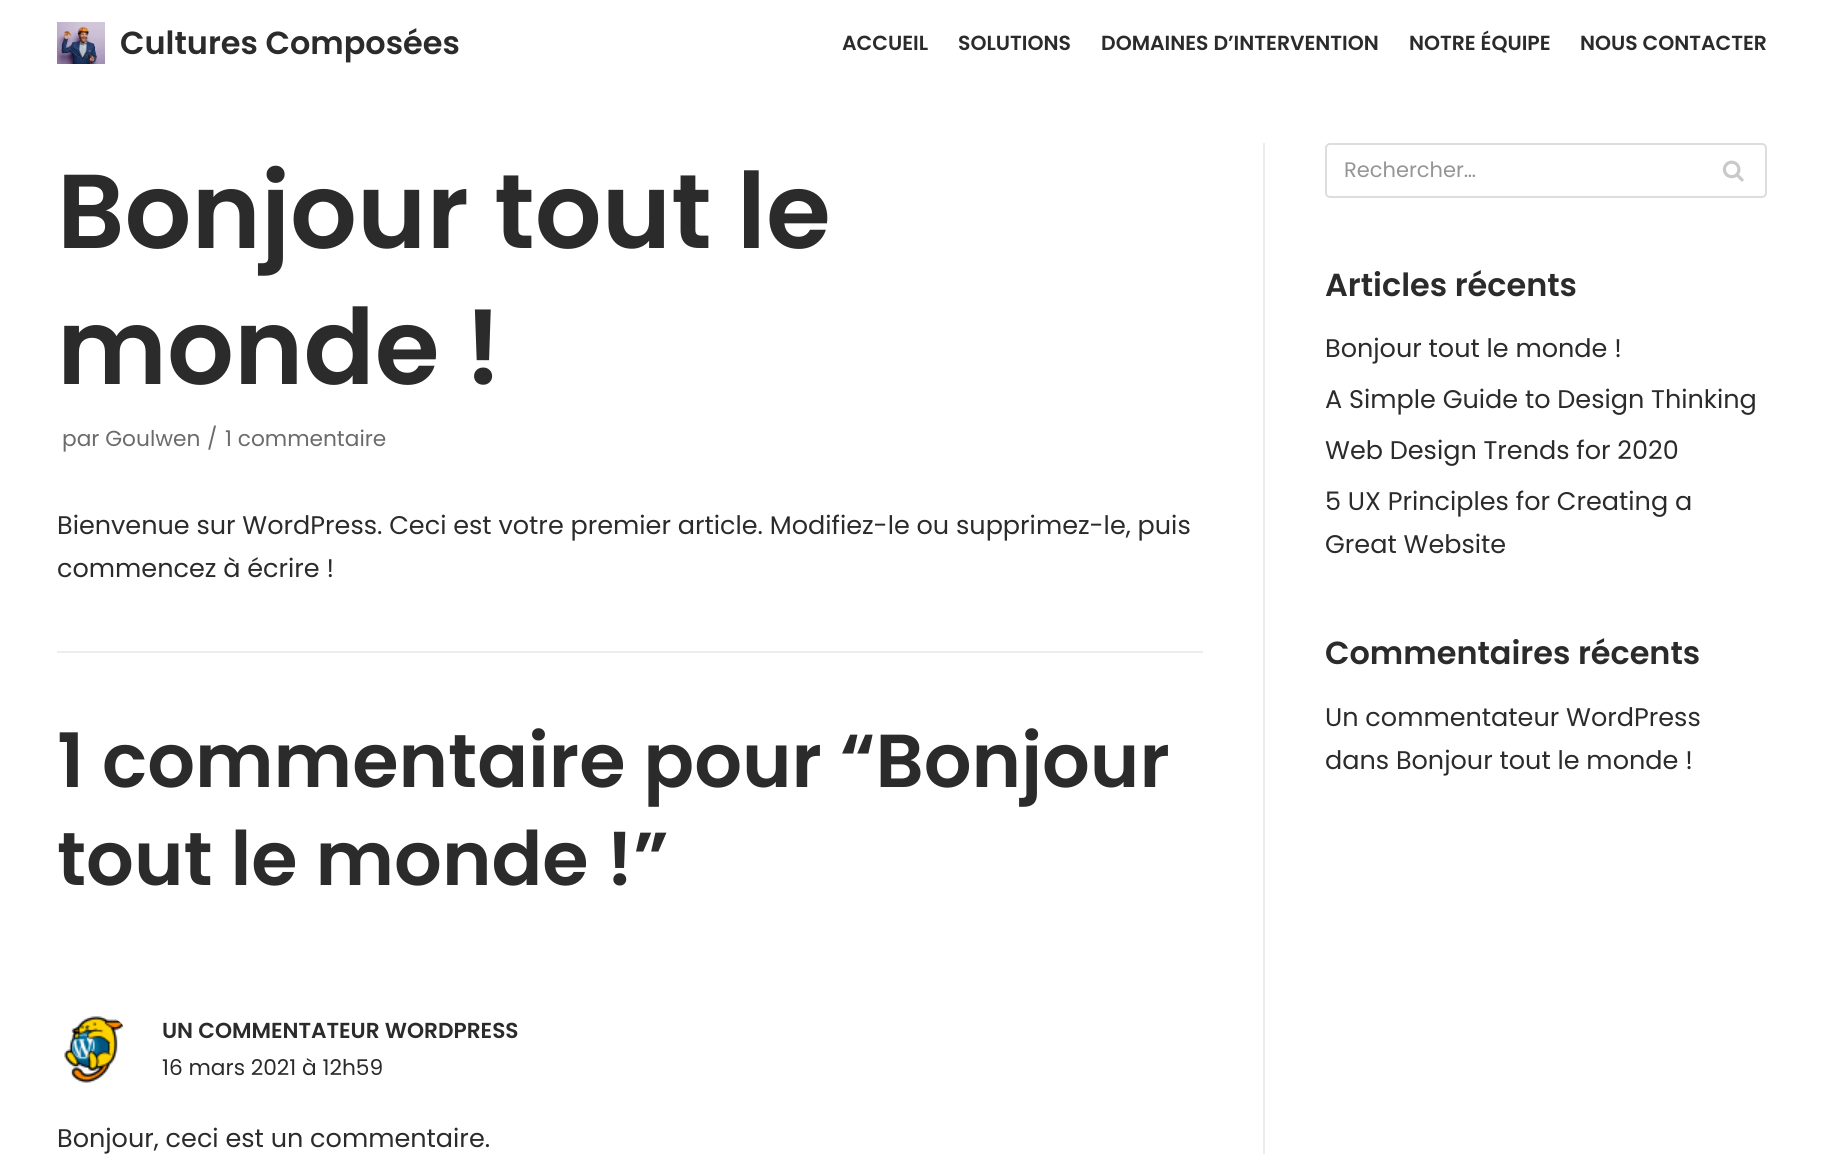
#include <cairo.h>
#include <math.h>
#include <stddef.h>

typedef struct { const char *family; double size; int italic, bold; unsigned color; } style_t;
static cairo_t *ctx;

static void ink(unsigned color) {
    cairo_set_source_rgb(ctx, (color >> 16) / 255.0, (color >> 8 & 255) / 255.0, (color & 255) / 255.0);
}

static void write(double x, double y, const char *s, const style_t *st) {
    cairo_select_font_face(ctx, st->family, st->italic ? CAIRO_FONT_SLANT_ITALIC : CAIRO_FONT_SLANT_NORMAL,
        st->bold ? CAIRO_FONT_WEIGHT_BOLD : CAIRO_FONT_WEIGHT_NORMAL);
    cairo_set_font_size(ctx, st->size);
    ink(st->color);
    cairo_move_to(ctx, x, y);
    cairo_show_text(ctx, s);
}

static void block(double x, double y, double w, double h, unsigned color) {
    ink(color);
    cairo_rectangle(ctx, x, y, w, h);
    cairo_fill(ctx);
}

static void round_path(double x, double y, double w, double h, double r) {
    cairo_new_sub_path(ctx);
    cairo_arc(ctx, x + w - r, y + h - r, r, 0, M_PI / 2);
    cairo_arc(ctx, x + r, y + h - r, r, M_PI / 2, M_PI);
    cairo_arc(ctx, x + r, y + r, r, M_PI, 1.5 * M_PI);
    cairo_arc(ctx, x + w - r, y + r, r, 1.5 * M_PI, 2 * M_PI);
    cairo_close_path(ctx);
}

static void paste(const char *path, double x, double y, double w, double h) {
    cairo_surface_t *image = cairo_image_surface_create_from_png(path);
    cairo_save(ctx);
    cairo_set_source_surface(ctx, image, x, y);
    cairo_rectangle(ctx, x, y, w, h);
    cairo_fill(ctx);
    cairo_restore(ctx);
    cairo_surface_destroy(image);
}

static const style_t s1 = {"Poppins SemiBold", 31.9, 0, 0, 0x2b2b2b};
static const style_t s2 = {"Poppins SemiBold", 20.4, 0, 0, 0x2b2b2b};
static const style_t s3 = {"Poppins SemiBold", 105, 0, 0, 0x2b2b2b};
static const style_t s4 = {"Poppins", 21.7, 0, 0, 0x6b6b6b};
static const style_t s5 = {"Poppins", 25.5, 0, 0, 0x2b2b2b};
static const style_t s6 = {"Poppins SemiBold", 75, 0, 0, 0x2b2b2b};
static const style_t s7 = {"Poppins SemiBold", 21.7, 0, 0, 0x2b2b2b};
static const style_t s8 = {"Poppins", 21.7, 0, 0, 0x2b2b2b};
static const style_t s9 = {"Poppins", 21, 0, 0, 0x959595};

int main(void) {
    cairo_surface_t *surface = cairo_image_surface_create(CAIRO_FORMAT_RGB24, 1824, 1154);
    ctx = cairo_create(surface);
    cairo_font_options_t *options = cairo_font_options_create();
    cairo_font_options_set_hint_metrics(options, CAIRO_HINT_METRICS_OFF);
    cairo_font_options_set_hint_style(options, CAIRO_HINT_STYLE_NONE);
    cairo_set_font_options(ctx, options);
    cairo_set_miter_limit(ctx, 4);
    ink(0xffffff);
    cairo_paint(ctx);
    paste("pic1.png", 57, 22, 48, 42);
    write(120, 54, "Cultures Composées", &s1);
    write(842, 50, "ACCUEIL", &s2);
    write(958, 50, "SOLUTIONS", &s2);
    write(1101, 50, "DOMAINES D’INTERVENTION", &s2);
    write(1409, 50, "NOTRE ÉQUIPE", &s2);
    write(1580, 50, "NOUS CONTACTER", &s2);
    write(57, 248, "Bonjour tout le", &s3);
    write(57, 384, "monde !", &s3);
    write(62, 446, "par Goulwen", &s4);
    write(207, 446, "/", &s4);
    write(225, 446, "1 commentaire", &s4);
    write(57, 534, "Bienvenue sur WordPress. Ceci est votre premier article. Modifiez-le ou supprimez-le, puis", &s5);
    write(57, 577, "commencez à écrire !", &s5);
    block(57, 651, 1146, 2, 0xededed);
    write(57, 787, "1 commentaire pour “Bonjour", &s6);
    write(57, 885, "tout le monde !”", &s6);
    paste("pic2.png", 64, 1016, 60, 67);
    write(162, 1038, "UN COMMENTATEUR WORDPRESS", &s7);
    write(162, 1075, "16 mars 2021 à 12h59", &s8);
    write(57, 1147, "Bonjour, ceci est un commentaire.", &s5);
    block(1263, 143, 2, 1011, 0xededed);
    round_path(1326, 144, 440, 53, 4);
    ink(0xdddddd);
    cairo_stroke(ctx);
    write(1344, 177, "Rechercher…", &s9);
    paste("pic3.png", 1722, 160, 22, 22);
    write(1325, 296, "Articles récents", &s1);
    write(1325, 357, "Bonjour tout le monde !", &s5);
    write(1325, 408, "A Simple Guide to Design Thinking", &s5);
    write(1325, 459, "Web Design Trends for 2020", &s5);
    write(1325, 510, "5 UX Principles for Creating a", &s5);
    write(1325, 553, "Great Website", &s5);
    write(1325, 664, "Commentaires récents", &s1);
    write(1325, 726, "Un commentateur WordPress", &s5);
    write(1325, 769, "dans Bonjour tout le monde !", &s5);
    cairo_surface_write_to_png(surface, "screenshot.png");
    cairo_font_options_destroy(options);
    cairo_destroy(ctx);
    cairo_surface_destroy(surface);
    return 0;
}
